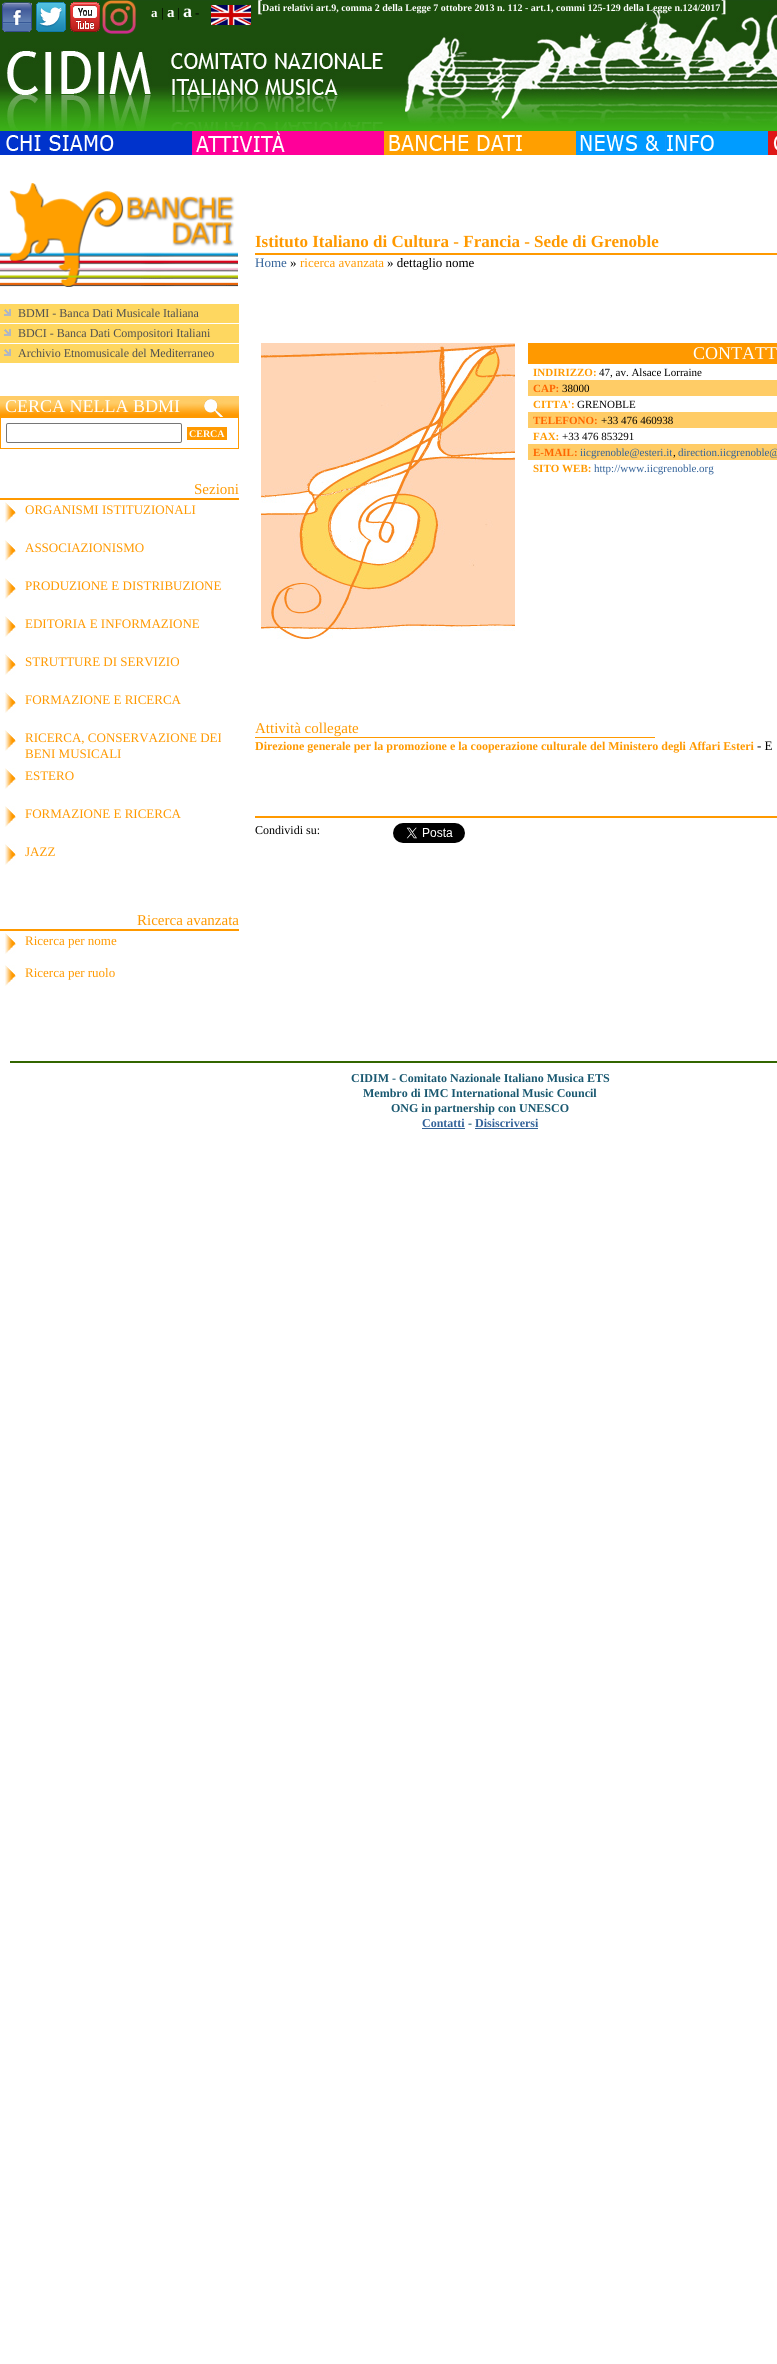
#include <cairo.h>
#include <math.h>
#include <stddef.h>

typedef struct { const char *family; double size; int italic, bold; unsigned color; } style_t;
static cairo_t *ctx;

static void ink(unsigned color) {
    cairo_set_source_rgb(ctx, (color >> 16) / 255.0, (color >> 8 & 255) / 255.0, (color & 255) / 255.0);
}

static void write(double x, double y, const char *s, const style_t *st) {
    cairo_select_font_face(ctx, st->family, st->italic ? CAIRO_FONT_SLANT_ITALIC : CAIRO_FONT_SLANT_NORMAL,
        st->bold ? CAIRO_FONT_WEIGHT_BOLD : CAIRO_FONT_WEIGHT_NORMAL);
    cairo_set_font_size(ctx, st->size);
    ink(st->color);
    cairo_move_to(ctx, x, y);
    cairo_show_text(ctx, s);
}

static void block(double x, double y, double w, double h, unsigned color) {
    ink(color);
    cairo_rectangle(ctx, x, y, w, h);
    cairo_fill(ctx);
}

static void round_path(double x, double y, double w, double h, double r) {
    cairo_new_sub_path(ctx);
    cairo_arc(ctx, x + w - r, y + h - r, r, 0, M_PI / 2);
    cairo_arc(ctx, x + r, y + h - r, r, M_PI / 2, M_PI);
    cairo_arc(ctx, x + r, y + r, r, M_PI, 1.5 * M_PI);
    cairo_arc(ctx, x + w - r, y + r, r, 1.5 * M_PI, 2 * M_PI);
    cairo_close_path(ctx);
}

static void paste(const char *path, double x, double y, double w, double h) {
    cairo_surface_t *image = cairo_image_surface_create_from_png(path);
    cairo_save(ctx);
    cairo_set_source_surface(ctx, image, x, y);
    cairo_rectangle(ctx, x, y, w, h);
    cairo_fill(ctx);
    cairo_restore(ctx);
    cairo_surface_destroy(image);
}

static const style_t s1 = {"Liberation Serif", 13, 0, 1, 0xffffff};
static const style_t s2 = {"Liberation Serif", 13, 0, 0, 0x000000};
static const style_t s3 = {"Liberation Serif", 15, 0, 1, 0xffffff};
static const style_t s4 = {"Liberation Serif", 18, 0, 1, 0xffffff};
static const style_t s5 = {"Liberation Serif", 17, 0, 1, 0xffffff};
static const style_t s6 = {"Liberation Serif", 10, 0, 1, 0xffffff};
static const style_t s7 = {"Liberation Serif", 12, 0, 0, 0x4f4f4f};
static const style_t s8 = {"Liberation Serif", 18, 0, 0, 0xffffff};
static const style_t s9 = {"Liberation Serif", 15, 0, 0, 0xff9900};
static const style_t s10 = {"Liberation Serif", 13, 0, 0, 0xff9900};
static const style_t s11 = {"Liberation Serif", 17, 0, 1, 0xff9900};
static const style_t s12 = {"Liberation Serif", 13, 0, 0, 0x336299};
static const style_t s13 = {"Liberation Serif", 11, 0, 1, 0xff9900};
static const style_t s14 = {"Liberation Serif", 11, 0, 0, 0x000000};
static const style_t s15 = {"Liberation Serif", 11, 0, 1, 0xff6600};
static const style_t s16 = {"Liberation Serif", 11, 0, 0, 0x336299};
static const style_t s17 = {"Liberation Serif", 12, 0, 1, 0xff9900};
static const style_t s18 = {"Liberation Serif", 12, 0, 0, 0x000000};
static const style_t s19 = {"Liberation Serif", 12, 0, 1, 0x195870};
static const style_t s20 = {"Liberation Serif", 12, 0, 1, 0x336299};

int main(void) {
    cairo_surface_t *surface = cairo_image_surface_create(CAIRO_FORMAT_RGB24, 777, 2364);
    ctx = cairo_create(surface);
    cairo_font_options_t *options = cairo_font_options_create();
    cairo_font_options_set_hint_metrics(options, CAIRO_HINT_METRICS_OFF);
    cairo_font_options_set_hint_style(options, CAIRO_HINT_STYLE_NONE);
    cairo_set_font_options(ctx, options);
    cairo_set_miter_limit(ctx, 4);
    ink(0xffffff);
    cairo_paint(ctx);
    paste("pic1.png", 0, 0, 777, 131);
    paste("pic2.png", 2, 2, 30, 30);
    paste("pic3.png", 36, 2, 30, 30);
    paste("pic4.png", 70, 2, 30, 30);
    paste("pic5.png", 102, 0, 34, 34);
    write(151, 17, "a", &s1);
    write(161, 17, "|", &s2);
    write(167, 17, "a", &s3);
    write(177, 17, "|", &s2);
    write(183, 17, "a", &s4);
    write(195, 17, "-", &s2);
    paste("pic6.png", 211, 5, 40, 20);
    write(257, 12, "[", &s5);
    write(262, 11, "Dati relativi art.9, comma 2 della Legge 7 ottobre 2013 n. 112 - art.1, commi 125-129 della Legge n.124/2017", &s6);
    write(721, 12, "]", &s5);
    block(0, 131, 192, 24, 0x0033cc);
    paste("pic7.png", 6, 135, 108, 16);
    block(192, 131, 192, 24, 0xff0099);
    paste("pic8.png", 196, 131, 89, 21);
    block(384, 131, 192, 24, 0xff9f00);
    paste("pic9.png", 389, 135, 133, 16);
    block(576, 131, 192, 24, 0x009cff);
    paste("pic10.png", 576, 131, 138, 22);
    paste("pic11.png", 768, 131, 9, 24);
    paste("pic12.png", 0, 183, 238, 104);
    block(0, 304, 239, 19, 0xfed760);
    paste("pic13.png", 4, 309, 7, 7);
    write(18, 317, "BDMI - Banca Dati Musicale Italiana", &s7);
    block(0, 324, 239, 19, 0xfed760);
    paste("pic13.png", 4, 329, 7, 7);
    write(18, 337, "BDCI - Banca Dati Compositori Italiani", &s7);
    block(0, 344, 239, 19, 0xfed760);
    paste("pic13.png", 4, 349, 7, 7);
    write(18, 357, "Archivio Etnomusicale del Mediterraneo", &s7);
    paste("pic14.png", 0, 396, 239, 21);
    write(5, 412, "CERCA NELLA BDMI", &s8);
    cairo_rectangle(ctx, 0.5, 417.5, 238, 31);
    ink(0xff9900);
    cairo_set_line_width(ctx, 1);
    cairo_stroke(ctx);
    round_path(6.5, 423.5, 175, 19, 1.5);
    ink(0x767676);
    cairo_stroke(ctx);
    block(189, 428, 36, 11, 0xff9900);
    block(187, 427, 40, 1, 0xff9900);
    block(225, 427, 2, 13, 0xff9900);
    block(187, 439, 40, 1, 0xff9900);
    block(187, 427, 2, 13, 0xff9900);
    write(189, 437, "CERCA", &s6);
    block(0, 498, 239, 2, 0xff9900);
    write(194, 494, "Sezioni", &s9);
    paste("pic15.png", 3, 502, 13, 21);
    write(25, 514, "ORGANISMI ISTITUZIONALI", &s10);
    paste("pic15.png", 3, 540, 13, 21);
    write(25, 552, "ASSOCIAZIONISMO", &s10);
    paste("pic15.png", 3, 578, 13, 21);
    write(25, 590, "PRODUZIONE E DISTRIBUZIONE", &s10);
    paste("pic15.png", 3, 616, 13, 21);
    write(25, 628, "EDITORIA E INFORMAZIONE", &s10);
    paste("pic15.png", 3, 654, 13, 21);
    write(25, 666, "STRUTTURE DI SERVIZIO", &s10);
    paste("pic15.png", 3, 692, 13, 21);
    write(25, 704, "FORMAZIONE E RICERCA", &s10);
    paste("pic15.png", 3, 730, 13, 21);
    write(25, 742, "RICERCA, CONSERVAZIONE DEI", &s10);
    write(25, 758, "BENI MUSICALI", &s10);
    paste("pic15.png", 3, 768, 13, 21);
    write(25, 780, "ESTERO", &s10);
    paste("pic15.png", 3, 806, 13, 21);
    write(25, 818, "FORMAZIONE E RICERCA", &s10);
    paste("pic15.png", 3, 844, 13, 21);
    write(25, 856, "JAZZ", &s10);
    block(0, 929, 239, 2, 0xff9900);
    write(137, 925, "Ricerca avanzata", &s9);
    paste("pic15.png", 3, 933, 13, 21);
    write(25, 945, "Ricerca per nome", &s10);
    paste("pic15.png", 3, 965, 13, 21);
    write(25, 977, "Ricerca per ruolo", &s10);
    block(255, 253, 522, 2, 0xff9900);
    write(255, 247, "Istituto Italiano di Cultura - Francia - Sede di Grenoble", &s11);
    write(255, 267, "Home", &s12);
    write(290, 267, "»", &s2);
    write(300, 267, "ricerca avanzata", &s10);
    write(387, 267, "» dettaglio nome", &s2);
    paste("pic16.png", 261, 343, 254, 296);
    block(528, 343, 249, 21, 0xff9900);
    write(693, 359, "CONTATT", &s8);
    write(533, 376, "INDIRIZZO:", &s13);
    write(599, 376, "47, av. Alsace Lorraine", &s14);
    block(528, 380, 249, 16, 0xffcc66);
    write(533, 392, "CAP:", &s15);
    write(562, 392, "38000", &s14);
    write(533, 408, "CITTA':", &s13);
    write(577, 408, "GRENOBLE", &s14);
    block(528, 412, 249, 16, 0xffcc66);
    write(533, 424, "TELEFONO:", &s15);
    write(601, 424, "+33 476 460938", &s14);
    write(533, 440, "FAX:", &s13);
    write(562, 440, "+33 476 853291", &s14);
    block(528, 444, 249, 16, 0xffcc66);
    write(533, 456, "E-MAIL:", &s15);
    write(580, 456, "iicgrenoble@esteri.it", &s16);
    write(673, 456, ",", &s14);
    write(678, 456, "direction.iicgrenoble@", &s16);
    write(533, 472, "SITO WEB:", &s13);
    write(594, 472, "http://www.iicgrenoble.org", &s16);
    block(255, 737, 400, 1, 0xff9900);
    write(255, 733, "Attività collegate", &s9);
    write(255, 750, "Direzione generale per la promozione e la cooperazione culturale del Ministero degli Affari Esteri", &s17);
    write(757, 750, "- E", &s2);
    block(255, 816, 522, 2, 0xff9900);
    write(255, 834, "Condividi su:", &s18);
    paste("pic17.png", 393, 823, 72, 20);
    block(10, 1061, 767, 2, 0x336600);
    write(351, 1082, "CIDIM - Comitato Nazionale Italiano Musica ETS", &s19);
    write(363, 1097, "Membro di IMC International Music Council", &s19);
    write(391, 1112, "ONG in partnership con UNESCO", &s19);
    write(422, 1127, "Contatti", &s20);
    block(422, 1128, 43, 1, 0x336299);
    write(468, 1127, "-", &s19);
    write(475, 1127, "Disiscriversi", &s20);
    block(475, 1128, 63, 1, 0x336299);
    cairo_surface_write_to_png(surface, "screenshot.png");
    cairo_font_options_destroy(options);
    cairo_destroy(ctx);
    cairo_surface_destroy(surface);
    return 0;
}
